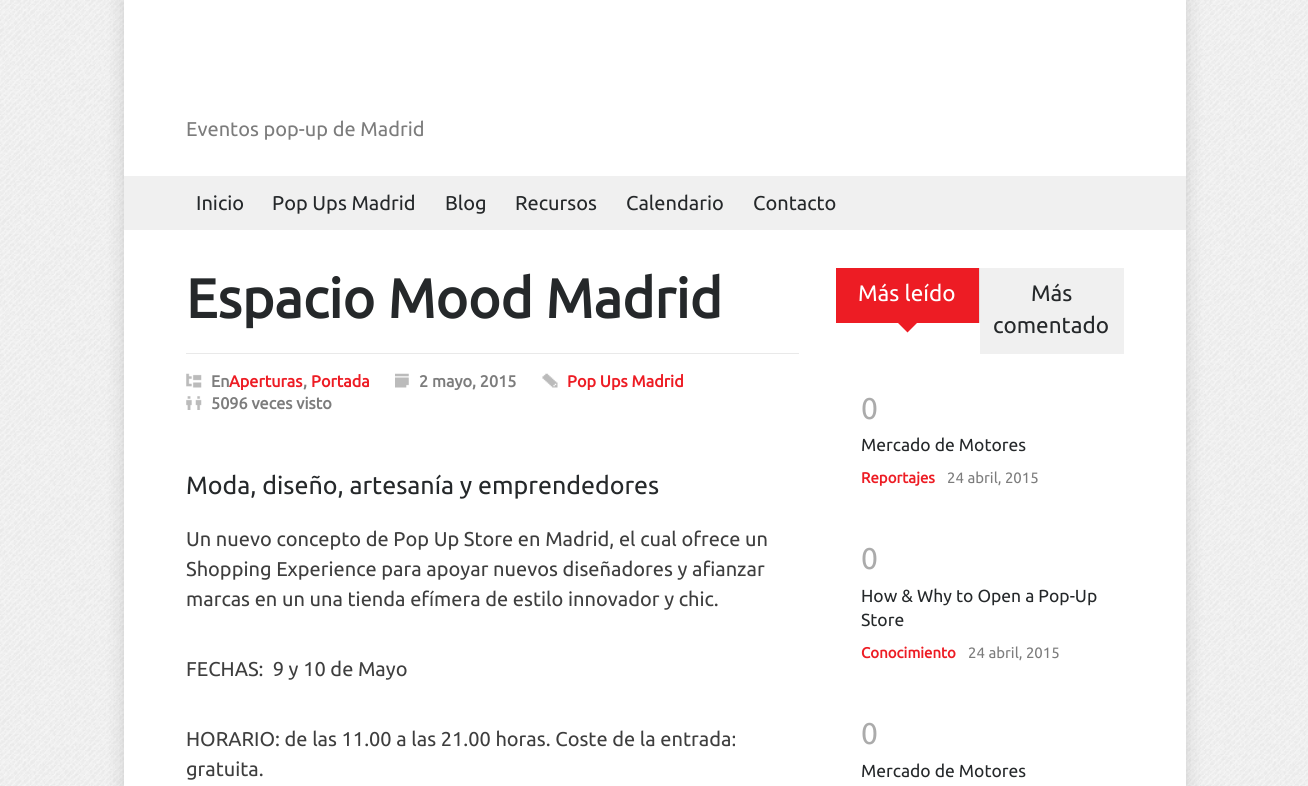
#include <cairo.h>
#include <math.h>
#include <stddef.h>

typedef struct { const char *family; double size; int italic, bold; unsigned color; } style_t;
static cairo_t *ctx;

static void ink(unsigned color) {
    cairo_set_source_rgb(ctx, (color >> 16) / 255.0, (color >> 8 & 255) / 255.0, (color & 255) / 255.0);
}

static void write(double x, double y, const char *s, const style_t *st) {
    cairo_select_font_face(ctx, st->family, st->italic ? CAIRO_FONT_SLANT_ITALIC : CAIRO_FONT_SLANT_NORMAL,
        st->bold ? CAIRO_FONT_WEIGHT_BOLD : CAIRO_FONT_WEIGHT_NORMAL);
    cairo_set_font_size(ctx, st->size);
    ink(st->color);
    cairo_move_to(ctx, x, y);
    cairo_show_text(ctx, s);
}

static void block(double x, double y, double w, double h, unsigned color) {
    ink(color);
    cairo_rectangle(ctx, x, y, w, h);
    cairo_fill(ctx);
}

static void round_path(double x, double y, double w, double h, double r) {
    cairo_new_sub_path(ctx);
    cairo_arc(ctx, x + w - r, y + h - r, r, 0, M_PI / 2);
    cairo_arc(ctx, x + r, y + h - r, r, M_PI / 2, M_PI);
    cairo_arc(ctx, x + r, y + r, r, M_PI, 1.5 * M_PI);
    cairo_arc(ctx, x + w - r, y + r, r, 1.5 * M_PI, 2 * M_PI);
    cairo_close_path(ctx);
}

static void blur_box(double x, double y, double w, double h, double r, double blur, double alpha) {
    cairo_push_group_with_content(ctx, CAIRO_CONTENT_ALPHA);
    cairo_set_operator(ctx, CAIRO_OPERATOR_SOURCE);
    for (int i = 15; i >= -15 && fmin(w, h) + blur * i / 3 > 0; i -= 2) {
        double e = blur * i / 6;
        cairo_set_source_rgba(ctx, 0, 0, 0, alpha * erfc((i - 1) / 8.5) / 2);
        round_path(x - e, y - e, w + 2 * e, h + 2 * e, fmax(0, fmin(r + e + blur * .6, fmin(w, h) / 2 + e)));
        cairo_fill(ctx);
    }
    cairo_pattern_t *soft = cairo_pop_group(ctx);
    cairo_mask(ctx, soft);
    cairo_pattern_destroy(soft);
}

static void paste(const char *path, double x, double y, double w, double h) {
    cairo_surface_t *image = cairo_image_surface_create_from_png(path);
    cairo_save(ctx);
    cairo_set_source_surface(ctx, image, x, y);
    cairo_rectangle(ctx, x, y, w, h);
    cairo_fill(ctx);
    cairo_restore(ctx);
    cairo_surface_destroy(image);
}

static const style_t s1 = {"Ubuntu", 20, 0, 0, 0x7c7c7c};
static const style_t s2 = {"Ubuntu", 20, 0, 0, 0x25282a};
static const style_t s3 = {"Ubuntu", 55, 0, 1, 0x25282a};
static const style_t s4 = {"Ubuntu", 16.25, 0, 1, 0x7c7c7c};
static const style_t s5 = {"Ubuntu", 16.25, 0, 1, 0xed1c24};
static const style_t s6 = {"Ubuntu", 25, 0, 0, 0x25282a};
static const style_t s7 = {"Ubuntu", 20, 0, 0, 0x3e3e3e};
static const style_t s8 = {"Ubuntu", 22.5, 0, 0, 0xffffff};
static const style_t s9 = {"Ubuntu", 22.5, 0, 0, 0x25282a};
static const style_t s10 = {"Ubuntu", 30, 0, 0, 0xababab};
static const style_t s11 = {"Ubuntu", 17.5, 0, 0, 0x25282a};
static const style_t s12 = {"Ubuntu", 15, 0, 1, 0xed1c24};
static const style_t s13 = {"Ubuntu", 15, 0, 0, 0x7c7c7c};

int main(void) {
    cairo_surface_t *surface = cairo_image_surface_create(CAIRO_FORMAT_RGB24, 1308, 786);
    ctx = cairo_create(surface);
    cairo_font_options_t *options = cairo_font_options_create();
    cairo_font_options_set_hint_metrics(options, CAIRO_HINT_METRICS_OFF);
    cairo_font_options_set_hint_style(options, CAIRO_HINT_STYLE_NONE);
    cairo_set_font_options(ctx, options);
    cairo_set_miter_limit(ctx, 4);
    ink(0xffffff);
    cairo_paint(ctx);
    paste("pic1.png", 0, 0, 1308, 786);
    ink(0x000000);
    blur_box(124, 0, 1062, 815, 0, 9.5, 0.15);
    block(124, 0, 1062, 786, 0xffffff);
    write(186, 136, "Eventos pop-up de Madrid", &s1);
    block(124, 176, 1062, 54, 0xf0f0f0);
    write(196, 210, "Inicio", &s2);
    write(272, 210, "Pop Ups Madrid", &s2);
    write(445, 210, "Blog", &s2);
    write(515, 210, "Recursos", &s2);
    write(626, 210, "Calendario", &s2);
    write(753, 210, "Contacto", &s2);
    write(186, 318, "Espacio Mood Madrid", &s3);
    block(186, 353, 613, 1, 0xe9e9e9);
    paste("pic2.png", 186, 373, 16, 15);
    write(211, 387, "En", &s4);
    write(229, 387, "Aperturas", &s5);
    write(303, 387, ",", &s4);
    write(311, 387, "Portada", &s5);
    paste("pic3.png", 395, 373, 14, 15);
    write(419, 387, "2 mayo, 2015", &s4);
    paste("pic4.png", 542, 373, 16, 15);
    write(567, 387, "Pop Ups Madrid", &s5);
    paste("pic5.png", 186, 396, 16, 14);
    write(211, 409, "5096 veces visto", &s4);
    write(186, 494, "Moda, diseño, artesanía y emprendedores", &s6);
    write(186, 546, "Un nuevo concepto de Pop Up Store en Madrid, el cual ofrece un", &s7);
    write(186, 576, "Shopping Experience para apoyar nuevos diseñadores y afianzar", &s7);
    write(186, 606, "marcas en un una tienda efímera de estilo innovador y chic.", &s7);
    write(186, 676, "FECHAS:  9 y 10 de Mayo", &s7);
    write(186, 746, "HORARIO: de las 11.00 a las 21.00 horas. Coste de la entrada:", &s7);
    write(186, 776, "gratuita.", &s7);
    block(836, 268, 143, 55, 0xed1c24);
    block(979, 268, 1, 55, 0xe0e0e0);
    write(858, 301, "Más leído", &s8);
    ink(0xed1c24);
    cairo_new_path(ctx);
    cairo_move_to(ctx, 896, 321);
    cairo_line_to(ctx, 919, 321);
    cairo_line_to(ctx, 907.5, 332.5);
    cairo_close_path(ctx);
    cairo_fill(ctx);
    block(980, 268, 144, 86, 0xf0f0f0);
    write(1031, 301, "Más", &s9);
    write(993, 333, "comentado", &s9);
    write(861, 419, "0", &s10);
    write(861, 451, "Mercado de Motores", &s11);
    write(861, 483, "Reportajes", &s12);
    write(947, 483, "24 abril, 2015", &s13);
    write(861, 569, "0", &s10);
    write(861, 602, "How & Why to Open a Pop-Up", &s11);
    write(861, 626, "Store", &s11);
    write(861, 658, "Conocimiento", &s12);
    write(968, 658, "24 abril, 2015", &s13);
    write(861, 744, "0", &s10);
    write(861, 777, "Mercado de Motores", &s11);
    cairo_surface_write_to_png(surface, "screenshot.png");
    cairo_font_options_destroy(options);
    cairo_destroy(ctx);
    cairo_surface_destroy(surface);
    return 0;
}
